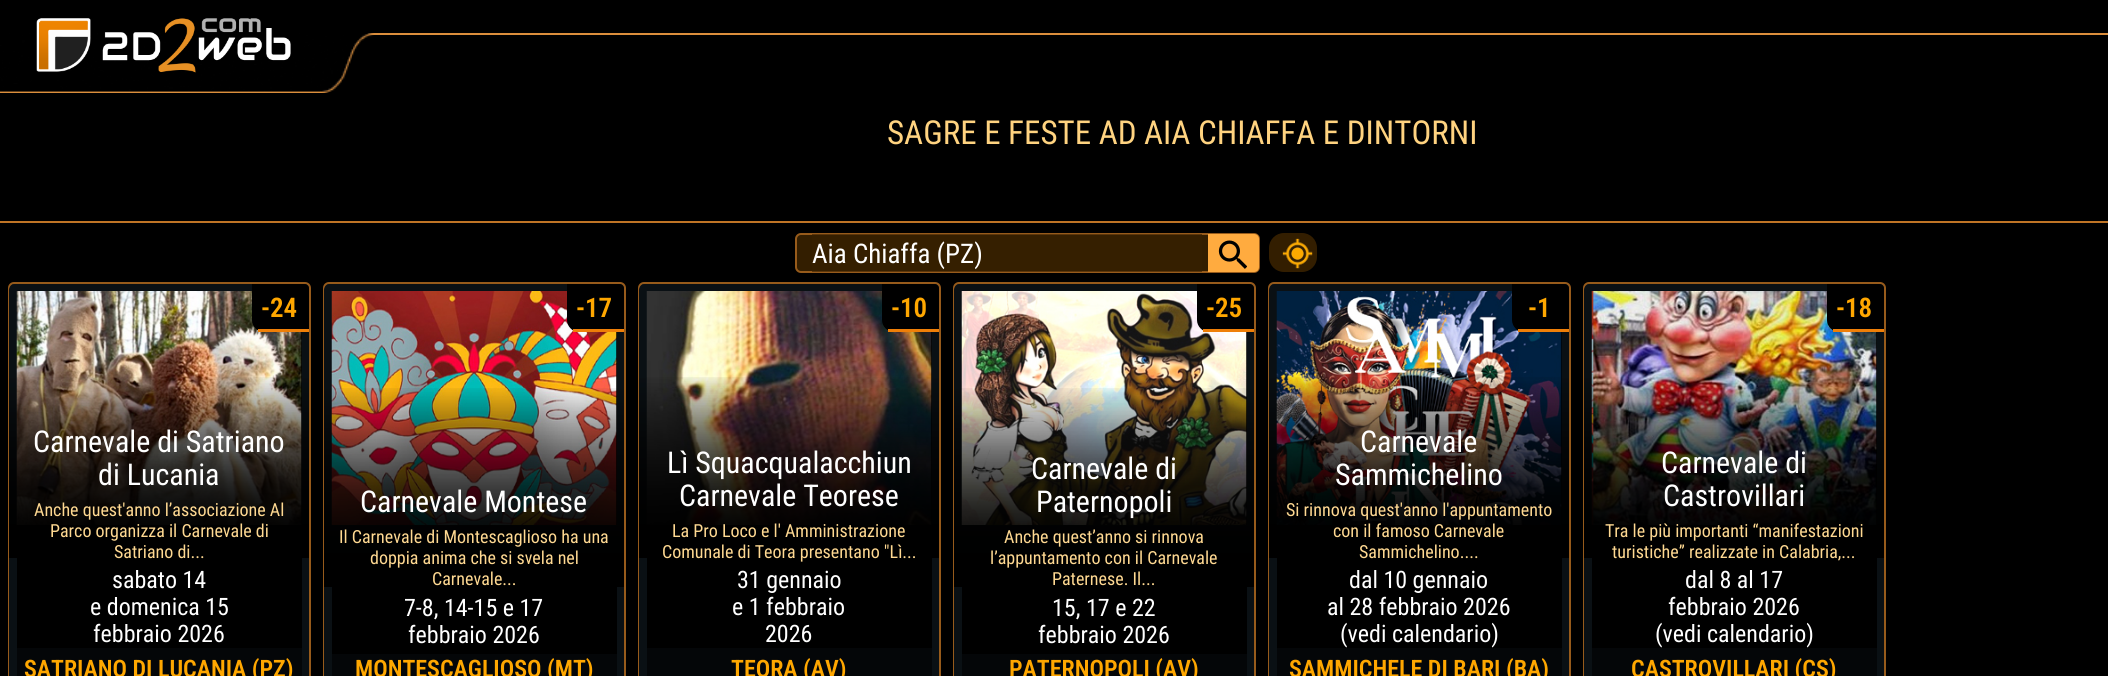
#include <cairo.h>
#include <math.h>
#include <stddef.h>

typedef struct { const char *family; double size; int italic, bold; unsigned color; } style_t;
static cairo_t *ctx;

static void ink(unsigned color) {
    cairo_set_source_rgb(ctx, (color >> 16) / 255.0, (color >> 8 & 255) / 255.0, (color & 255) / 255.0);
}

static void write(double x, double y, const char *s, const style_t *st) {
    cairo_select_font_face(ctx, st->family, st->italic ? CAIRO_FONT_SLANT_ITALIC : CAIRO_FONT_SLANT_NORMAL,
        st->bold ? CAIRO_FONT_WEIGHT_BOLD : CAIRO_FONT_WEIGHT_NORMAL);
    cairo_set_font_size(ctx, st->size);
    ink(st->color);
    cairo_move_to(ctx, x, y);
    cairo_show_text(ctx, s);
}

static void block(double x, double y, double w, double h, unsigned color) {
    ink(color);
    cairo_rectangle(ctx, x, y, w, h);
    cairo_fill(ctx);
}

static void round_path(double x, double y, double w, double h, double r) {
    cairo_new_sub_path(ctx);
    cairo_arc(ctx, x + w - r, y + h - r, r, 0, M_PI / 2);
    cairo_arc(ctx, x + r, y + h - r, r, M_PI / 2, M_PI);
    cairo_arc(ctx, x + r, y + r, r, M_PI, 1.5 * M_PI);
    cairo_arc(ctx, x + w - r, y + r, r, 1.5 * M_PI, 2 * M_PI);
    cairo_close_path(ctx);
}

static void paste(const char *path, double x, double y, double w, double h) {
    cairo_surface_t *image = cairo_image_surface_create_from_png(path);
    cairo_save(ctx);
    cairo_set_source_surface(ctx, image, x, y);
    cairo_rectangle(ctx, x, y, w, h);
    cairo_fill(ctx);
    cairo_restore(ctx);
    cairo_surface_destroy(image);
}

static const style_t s1 = {"Roboto Condensed", 33, 0, 0, 0xffd380};
static const style_t s2 = {"Roboto Condensed", 27, 0, 0, 0xffffff};
static const style_t s3 = {"Roboto Condensed SemiBold", 27, 0, 0, 0xffa700};
static const style_t s4 = {"Roboto Condensed", 24, 0, 0, 0xffffff};
static const style_t s5 = {"Roboto Condensed SemiBold", 24, 0, 0, 0xffa700};
static const style_t s6 = {"Roboto Condensed", 30, 0, 0, 0xffffff};
static const style_t s7 = {"Roboto Condensed", 18, 0, 0, 0xffd992};

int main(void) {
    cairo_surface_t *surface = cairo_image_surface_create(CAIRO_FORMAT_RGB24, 2108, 676);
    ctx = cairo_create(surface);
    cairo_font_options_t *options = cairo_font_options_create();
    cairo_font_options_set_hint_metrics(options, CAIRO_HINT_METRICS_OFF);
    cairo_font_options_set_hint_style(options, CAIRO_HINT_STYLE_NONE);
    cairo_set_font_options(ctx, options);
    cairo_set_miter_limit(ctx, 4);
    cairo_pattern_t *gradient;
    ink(0x000000);
    cairo_paint(ctx);
    block(367, 33, 1741, 2, 0xdb8e3c);
    paste("pic2.png", 0, 33, 374, 60);
    paste("pic1.png", 36, 18, 255, 55);
    write(887, 144, "SAGRE E FESTE AD AIA CHIAFFA E DINTORNI", &s1);
    block(0, 221, 2108, 2, 0xbf7425);
    ink(0x331e00);
    round_path(796, 234, 463, 38, 5);
    cairo_fill_preserve(ctx);
    ink(0x975b1b);
    cairo_stroke(ctx);
    cairo_set_source_rgba(ctx, 0.216, 0.129, 0, 0.6);
    cairo_rectangle(ctx, 812, 234, 390, 38);
    cairo_fill(ctx);
    write(812, 263, "Aia Chiaffa (PZ)", &s2);
    ink(0xffab3f);
    cairo_new_path(ctx);
    cairo_move_to(ctx, 1208, 234);
    cairo_line_to(ctx, 1254, 234);
    cairo_curve_to(ctx, 1257, 234, 1259, 236, 1259, 239);
    cairo_line_to(ctx, 1259, 267);
    cairo_curve_to(ctx, 1259, 270, 1257, 272, 1254, 272);
    cairo_line_to(ctx, 1208, 272);
    cairo_close_path(ctx);
    cairo_fill(ctx);
    paste("pic3.png", 1218, 240, 29, 29);
    ink(0x331e00);
    round_path(1269, 233, 48, 39, 15);
    cairo_fill(ctx);
    paste("pic4.png", 1282, 238, 31, 31);
    ink(0x202020);
    round_path(9, 283, 301, 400, 5);
    cairo_fill_preserve(ctx);
    ink(0x975b1b);
    cairo_stroke(ctx);
    cairo_save(ctx);
    round_path(9, 284, 300, 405, 5);
    cairo_clip(ctx);
    ink(0x0a1014);
    round_path(9, 284, 300, 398, 6);
    cairo_fill(ctx);
    cairo_restore(ctx);
    block(301, 332, 1, 193, 0x000000);
    paste("pic5.png", 16, 291, 286, 234);
    cairo_new_path(ctx);
    cairo_move_to(ctx, 252, 284);
    cairo_line_to(ctx, 304, 284);
    cairo_curve_to(ctx, 307, 284, 309, 286, 309, 289);
    cairo_line_to(ctx, 309, 332);
    cairo_line_to(ctx, 264, 332);
    cairo_curve_to(ctx, 257.5, 332, 252, 326.5, 252, 320);
    cairo_close_path(ctx);
    cairo_fill(ctx);
    block(258, 329, 51, 3, 0xef7f08);
    write(261, 317, "-24", &s3);
    block(17, 558, 285, 90, 0x000000);
    write(112, 588, "sabato 14", &s4);
    write(90, 615, "e domenica 15", &s4);
    write(93, 642, "febbraio 2026", &s4);
    block(17, 648, 285, 28, 0x040608);
    write(24, 677, "SATRIANO DI LUCANIA (PZ)", &s5);
    gradient = cairo_pattern_create_linear(159, 284, 159, 554);
    cairo_pattern_add_color_stop_rgba(gradient, 0.33, 0, 0, 0, 0);
    cairo_pattern_add_color_stop_rgba(gradient, 1, 0, 0, 0, 1);
    cairo_set_source(ctx, gradient);
    cairo_pattern_destroy(gradient);
    cairo_rectangle(ctx, 9, 377, 300, 148);
    cairo_fill(ctx);
    cairo_rectangle(ctx, 9, 377, 300, 148);
    cairo_fill(ctx);
    write(33, 452, "Carnevale di Satriano", &s6);
    write(98, 485, "di Lucania", &s6);
    write(34, 516, "Anche quest'anno l’associazione Al", &s7);
    block(9, 525, 300, 33, 0x000000);
    write(50, 537, "Parco organizza il Carnevale di", &s7);
    write(114, 558, "Satriano di...", &s7);
    ink(0x202020);
    round_path(324, 283, 301, 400, 5);
    cairo_fill_preserve(ctx);
    ink(0x975b1b);
    cairo_stroke(ctx);
    cairo_save(ctx);
    round_path(324, 284, 300, 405, 5);
    cairo_clip(ctx);
    ink(0x0a1014);
    round_path(324, 284, 300, 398, 6);
    cairo_fill(ctx);
    cairo_restore(ctx);
    block(616, 332, 1, 193, 0x000000);
    paste("pic6.png", 331, 291, 286, 234);
    cairo_new_path(ctx);
    cairo_move_to(ctx, 567, 284);
    cairo_line_to(ctx, 619, 284);
    cairo_curve_to(ctx, 622, 284, 624, 286, 624, 289);
    cairo_line_to(ctx, 624, 332);
    cairo_line_to(ctx, 579, 332);
    cairo_curve_to(ctx, 572.5, 332, 567, 326.5, 567, 320);
    cairo_close_path(ctx);
    cairo_fill(ctx);
    block(573, 329, 51, 3, 0xef7f08);
    write(576, 317, "-17", &s3);
    block(332, 585, 285, 69, 0x000000);
    write(404, 616, "7-8, 14-15 e 17", &s4);
    write(408, 643, "febbraio 2026", &s4);
    block(332, 654, 285, 22, 0x040608);
    write(355, 677, "MONTESCAGLIOSO (MT)", &s5);
    gradient = cairo_pattern_create_linear(474, 284, 474, 587);
    cairo_pattern_add_color_stop_rgba(gradient, 0.33, 0, 0, 0, 0);
    cairo_pattern_add_color_stop_rgba(gradient, 1, 0, 0, 0, 1);
    cairo_set_source(ctx, gradient);
    cairo_pattern_destroy(gradient);
    cairo_rectangle(ctx, 324, 388, 300, 198);
    cairo_fill(ctx);
    cairo_rectangle(ctx, 324, 388, 300, 199);
    cairo_fill(ctx);
    write(360, 512, "Carnevale Montese", &s6);
    write(339, 543, "Il Carnevale di Montescaglioso ha una", &s7);
    write(370, 564, "doppia anima che si svela nel", &s7);
    write(432, 585, "Carnevale...", &s7);
    ink(0x202020);
    round_path(639, 283, 301, 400, 5);
    cairo_fill_preserve(ctx);
    ink(0x975b1b);
    cairo_stroke(ctx);
    cairo_save(ctx);
    round_path(639, 284, 300, 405, 5);
    cairo_clip(ctx);
    ink(0x0a1014);
    round_path(639, 284, 300, 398, 6);
    cairo_fill(ctx);
    cairo_restore(ctx);
    block(931, 332, 1, 193, 0x000000);
    paste("pic7.png", 646, 291, 286, 234);
    cairo_new_path(ctx);
    cairo_move_to(ctx, 882, 284);
    cairo_line_to(ctx, 934, 284);
    cairo_curve_to(ctx, 937, 284, 939, 286, 939, 289);
    cairo_line_to(ctx, 939, 332);
    cairo_line_to(ctx, 894, 332);
    cairo_curve_to(ctx, 887.5, 332, 882, 326.5, 882, 320);
    cairo_close_path(ctx);
    cairo_fill(ctx);
    block(888, 329, 51, 3, 0xef7f08);
    write(891, 317, "-10", &s3);
    block(647, 558, 285, 90, 0x000000);
    write(737, 588, "31 gennaio", &s4);
    write(732, 615, "e 1 febbraio", &s4);
    write(765, 642, "2026", &s4);
    block(647, 648, 285, 28, 0x040608);
    write(731, 677, "TEORA (AV)", &s5);
    gradient = cairo_pattern_create_linear(789, 284, 789, 554);
    cairo_pattern_add_color_stop_rgba(gradient, 0.33, 0, 0, 0, 0);
    cairo_pattern_add_color_stop_rgba(gradient, 1, 0, 0, 0, 1);
    cairo_set_source(ctx, gradient);
    cairo_pattern_destroy(gradient);
    cairo_rectangle(ctx, 639, 377, 300, 148);
    cairo_fill(ctx);
    cairo_rectangle(ctx, 639, 377, 300, 148);
    cairo_fill(ctx);
    write(667, 473, "Lì Squacqualacchiun", &s6);
    write(679, 506, "Carnevale Teorese", &s6);
    block(639, 525, 300, 33, 0x000000);
    write(672, 537, "La Pro Loco e l' Amministrazione", &s7);
    write(662, 558, "Comunale di Teora presentano \"Lì...", &s7);
    ink(0x202020);
    round_path(954, 283, 301, 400, 5);
    cairo_fill_preserve(ctx);
    ink(0x975b1b);
    cairo_stroke(ctx);
    cairo_save(ctx);
    round_path(954, 284, 300, 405, 5);
    cairo_clip(ctx);
    ink(0x0a1014);
    round_path(954, 284, 300, 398, 6);
    cairo_fill(ctx);
    cairo_restore(ctx);
    block(1246, 332, 1, 193, 0x000000);
    paste("pic8.png", 961, 291, 286, 234);
    cairo_new_path(ctx);
    cairo_move_to(ctx, 1197, 284);
    cairo_line_to(ctx, 1249, 284);
    cairo_curve_to(ctx, 1252, 284, 1254, 286, 1254, 289);
    cairo_line_to(ctx, 1254, 332);
    cairo_line_to(ctx, 1209, 332);
    cairo_curve_to(ctx, 1202.5, 332, 1197, 326.5, 1197, 320);
    cairo_close_path(ctx);
    cairo_fill(ctx);
    block(1203, 329, 51, 3, 0xef7f08);
    write(1206, 317, "-25", &s3);
    block(962, 585, 285, 69, 0x000000);
    write(1052, 616, "15, 17 e 22", &s4);
    write(1038, 643, "febbraio 2026", &s4);
    block(962, 654, 285, 22, 0x040608);
    write(1009, 677, "PATERNOPOLI (AV)", &s5);
    gradient = cairo_pattern_create_linear(1104, 284, 1104, 587);
    cairo_pattern_add_color_stop_rgba(gradient, 0.33, 0, 0, 0, 0);
    cairo_pattern_add_color_stop_rgba(gradient, 1, 0, 0, 0, 1);
    cairo_set_source(ctx, gradient);
    cairo_pattern_destroy(gradient);
    cairo_rectangle(ctx, 954, 388, 300, 198);
    cairo_fill(ctx);
    cairo_rectangle(ctx, 954, 388, 300, 199);
    cairo_fill(ctx);
    write(1031, 479, "Carnevale di", &s6);
    write(1036, 512, "Paternopoli", &s6);
    write(1004, 543, "Anche quest’anno si rinnova", &s7);
    write(990, 564, "l’appuntamento con il Carnevale", &s7);
    write(1052, 585, "Paternese. Il...", &s7);
    ink(0x202020);
    round_path(1269, 283, 301, 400, 5);
    cairo_fill_preserve(ctx);
    ink(0x975b1b);
    cairo_stroke(ctx);
    cairo_save(ctx);
    round_path(1269, 284, 300, 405, 5);
    cairo_clip(ctx);
    ink(0x0a1014);
    round_path(1269, 284, 300, 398, 6);
    cairo_fill(ctx);
    cairo_restore(ctx);
    block(1561, 332, 1, 193, 0x000000);
    paste("pic9.png", 1276, 291, 286, 234);
    cairo_new_path(ctx);
    cairo_move_to(ctx, 1512, 284);
    cairo_line_to(ctx, 1564, 284);
    cairo_curve_to(ctx, 1567, 284, 1569, 286, 1569, 289);
    cairo_line_to(ctx, 1569, 332);
    cairo_line_to(ctx, 1524, 332);
    cairo_curve_to(ctx, 1517.5, 332, 1512, 326.5, 1512, 320);
    cairo_close_path(ctx);
    cairo_fill(ctx);
    block(1518, 329, 51, 3, 0xef7f08);
    write(1528, 317, "-1", &s3);
    block(1277, 558, 285, 90, 0x000000);
    write(1349, 588, "dal 10 gennaio", &s4);
    write(1327, 615, "al 28 febbraio 2026", &s4);
    write(1340, 642, "(vedi calendario)", &s4);
    block(1277, 648, 285, 28, 0x040608);
    write(1289, 677, "SAMMICHELE DI BARI (BA)", &s5);
    gradient = cairo_pattern_create_linear(1419, 284, 1419, 554);
    cairo_pattern_add_color_stop_rgba(gradient, 0.33, 0, 0, 0, 0);
    cairo_pattern_add_color_stop_rgba(gradient, 1, 0, 0, 0, 1);
    cairo_set_source(ctx, gradient);
    cairo_pattern_destroy(gradient);
    cairo_rectangle(ctx, 1269, 377, 300, 148);
    cairo_fill(ctx);
    cairo_rectangle(ctx, 1269, 377, 300, 148);
    cairo_fill(ctx);
    write(1360, 452, "Carnevale", &s6);
    write(1335, 485, "Sammichelino", &s6);
    write(1286, 516, "Si rinnova quest'anno l'appuntamento", &s7);
    block(1269, 525, 300, 33, 0x000000);
    write(1333, 537, "con il famoso Carnevale", &s7);
    write(1359, 558, "Sammichelino....", &s7);
    ink(0x202020);
    round_path(1584, 283, 301, 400, 5);
    cairo_fill_preserve(ctx);
    ink(0x975b1b);
    cairo_stroke(ctx);
    cairo_save(ctx);
    round_path(1584, 284, 300, 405, 5);
    cairo_clip(ctx);
    ink(0x0a1014);
    round_path(1584, 284, 300, 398, 6);
    cairo_fill(ctx);
    cairo_restore(ctx);
    block(1876, 332, 1, 193, 0x000000);
    paste("pic10.png", 1591, 291, 286, 234);
    cairo_new_path(ctx);
    cairo_move_to(ctx, 1827, 284);
    cairo_line_to(ctx, 1879, 284);
    cairo_curve_to(ctx, 1882, 284, 1884, 286, 1884, 289);
    cairo_line_to(ctx, 1884, 332);
    cairo_line_to(ctx, 1839, 332);
    cairo_curve_to(ctx, 1832.5, 332, 1827, 326.5, 1827, 320);
    cairo_close_path(ctx);
    cairo_fill(ctx);
    block(1833, 329, 51, 3, 0xef7f08);
    write(1836, 317, "-18", &s3);
    block(1592, 558, 285, 90, 0x000000);
    write(1685, 588, "dal 8 al 17", &s4);
    write(1668, 615, "febbraio 2026", &s4);
    write(1655, 642, "(vedi calendario)", &s4);
    block(1592, 648, 285, 28, 0x040608);
    write(1631, 677, "CASTROVILLARI (CS)", &s5);
    gradient = cairo_pattern_create_linear(1734, 284, 1734, 554);
    cairo_pattern_add_color_stop_rgba(gradient, 0.33, 0, 0, 0, 0);
    cairo_pattern_add_color_stop_rgba(gradient, 1, 0, 0, 0, 1);
    cairo_set_source(ctx, gradient);
    cairo_pattern_destroy(gradient);
    cairo_rectangle(ctx, 1584, 377, 300, 148);
    cairo_fill(ctx);
    cairo_rectangle(ctx, 1584, 377, 300, 148);
    cairo_fill(ctx);
    write(1661, 473, "Carnevale di", &s6);
    write(1663, 506, "Castrovillari", &s6);
    block(1584, 525, 300, 33, 0x000000);
    write(1605, 537, "Tra le più importanti “manifestazioni", &s7);
    write(1612, 558, "turistiche” realizzate in Calabria,...", &s7);
    cairo_surface_write_to_png(surface, "screenshot.png");
    cairo_font_options_destroy(options);
    cairo_destroy(ctx);
    cairo_surface_destroy(surface);
    return 0;
}
